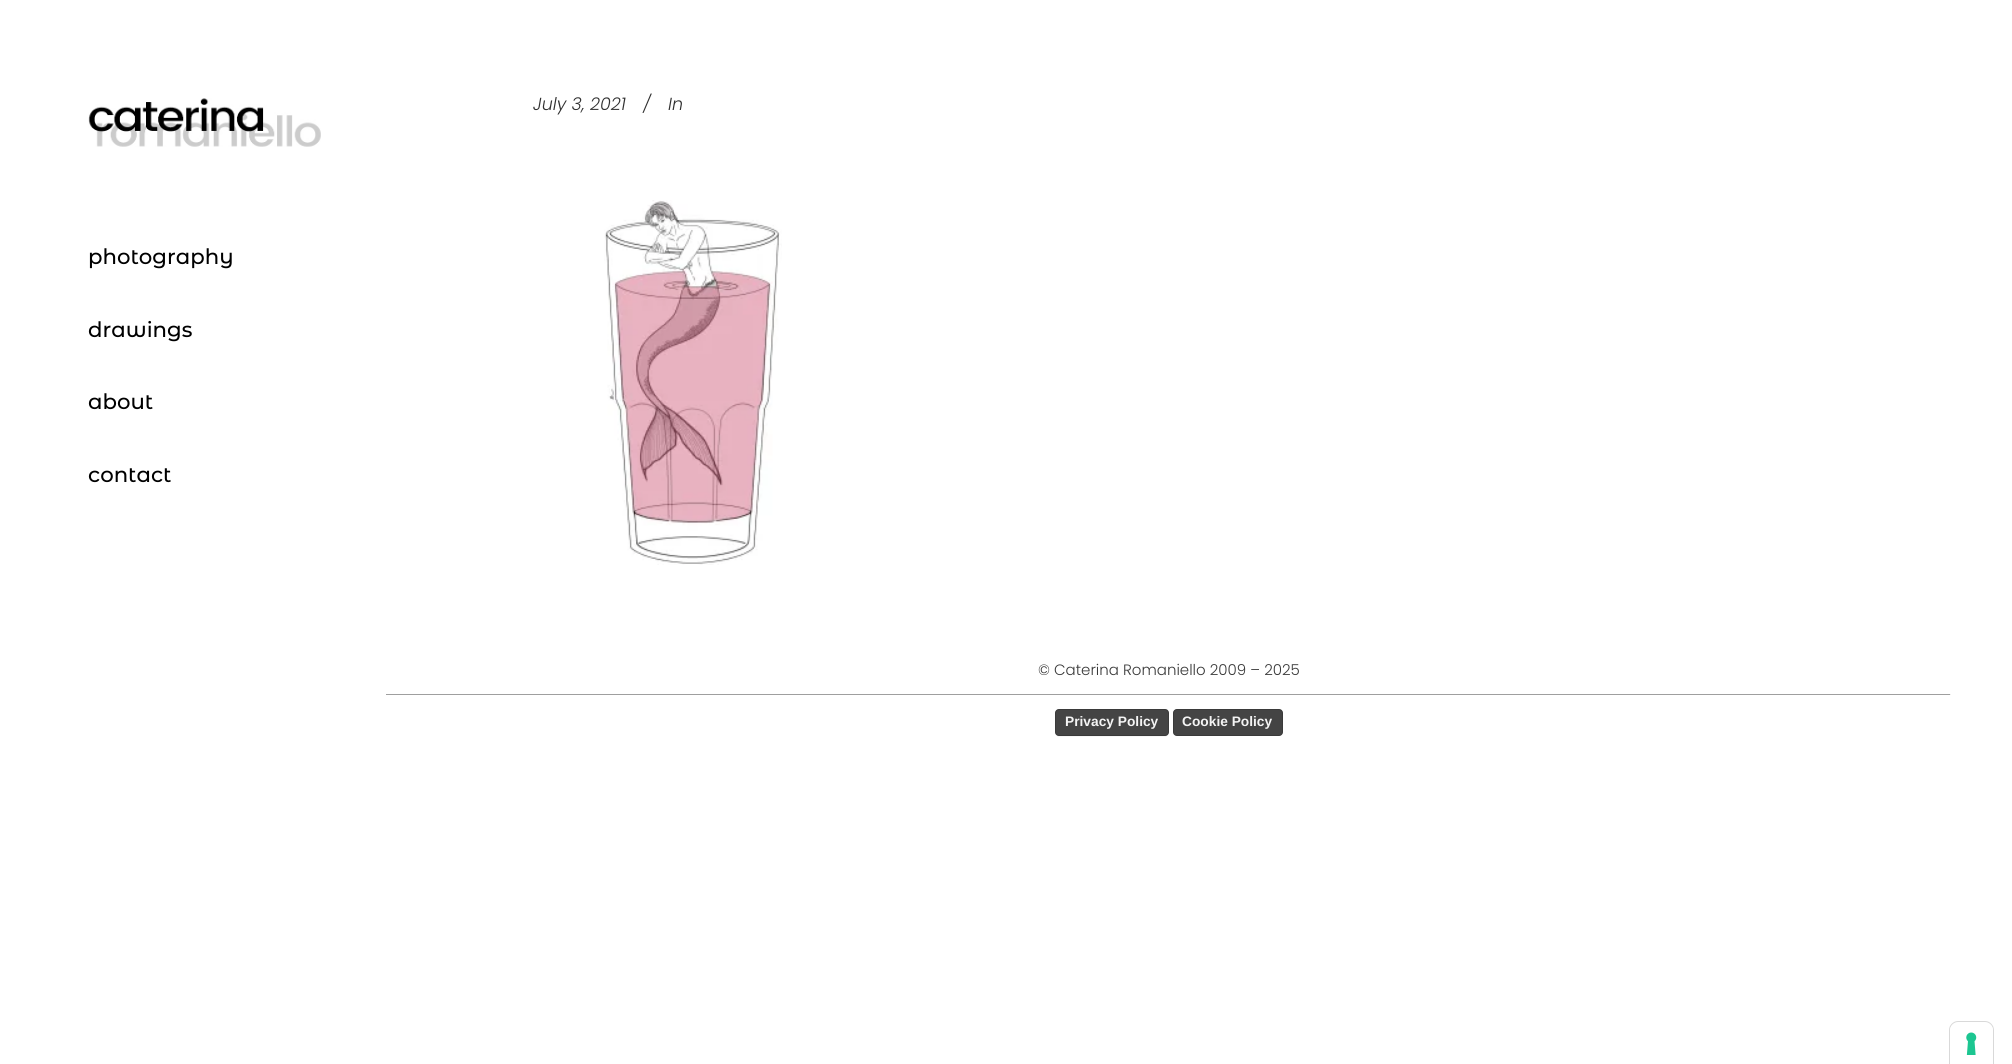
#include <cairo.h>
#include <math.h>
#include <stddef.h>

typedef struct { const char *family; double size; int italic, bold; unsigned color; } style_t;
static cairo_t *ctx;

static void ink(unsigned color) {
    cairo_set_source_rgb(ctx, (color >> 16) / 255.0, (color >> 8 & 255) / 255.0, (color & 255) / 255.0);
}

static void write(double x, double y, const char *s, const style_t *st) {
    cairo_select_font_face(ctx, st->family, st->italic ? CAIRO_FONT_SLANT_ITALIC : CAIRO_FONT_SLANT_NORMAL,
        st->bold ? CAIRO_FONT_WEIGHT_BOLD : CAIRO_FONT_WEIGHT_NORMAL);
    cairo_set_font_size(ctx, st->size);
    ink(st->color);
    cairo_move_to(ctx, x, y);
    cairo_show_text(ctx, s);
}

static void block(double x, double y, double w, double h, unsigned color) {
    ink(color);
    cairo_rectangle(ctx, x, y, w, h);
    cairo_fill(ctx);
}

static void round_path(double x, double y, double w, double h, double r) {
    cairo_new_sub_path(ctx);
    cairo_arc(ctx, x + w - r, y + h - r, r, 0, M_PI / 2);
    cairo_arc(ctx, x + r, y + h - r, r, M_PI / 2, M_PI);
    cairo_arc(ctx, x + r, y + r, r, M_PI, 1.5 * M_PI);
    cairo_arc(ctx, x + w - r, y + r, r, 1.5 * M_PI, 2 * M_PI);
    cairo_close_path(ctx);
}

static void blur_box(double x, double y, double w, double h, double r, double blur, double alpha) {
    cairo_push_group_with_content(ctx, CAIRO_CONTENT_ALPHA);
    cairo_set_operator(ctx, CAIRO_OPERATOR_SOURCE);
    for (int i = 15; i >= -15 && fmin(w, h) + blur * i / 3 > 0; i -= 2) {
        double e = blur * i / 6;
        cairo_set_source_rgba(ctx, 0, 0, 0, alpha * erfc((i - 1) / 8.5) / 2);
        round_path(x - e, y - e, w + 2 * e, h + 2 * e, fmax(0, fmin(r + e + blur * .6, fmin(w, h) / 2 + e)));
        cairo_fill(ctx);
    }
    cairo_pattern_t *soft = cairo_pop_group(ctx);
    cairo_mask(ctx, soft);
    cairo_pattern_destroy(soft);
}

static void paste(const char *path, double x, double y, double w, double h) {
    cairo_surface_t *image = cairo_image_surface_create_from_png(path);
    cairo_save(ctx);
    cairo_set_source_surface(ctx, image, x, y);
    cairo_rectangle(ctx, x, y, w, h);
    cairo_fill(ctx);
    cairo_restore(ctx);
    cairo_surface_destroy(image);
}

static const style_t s1 = {"Poppins Light", 17.5, 1, 0, 0x303030};
static const style_t s2 = {"Montserrat Alternates Medium", 21.25, 0, 0, 0x000000};
static const style_t s3 = {"Poppins Light", 15, 0, 0, 0x393939};
static const style_t s4 = {"Liberation Sans", 13.75, 0, 1, 0xf4f4f4};

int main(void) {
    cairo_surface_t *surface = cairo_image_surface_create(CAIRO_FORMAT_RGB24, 2012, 1064);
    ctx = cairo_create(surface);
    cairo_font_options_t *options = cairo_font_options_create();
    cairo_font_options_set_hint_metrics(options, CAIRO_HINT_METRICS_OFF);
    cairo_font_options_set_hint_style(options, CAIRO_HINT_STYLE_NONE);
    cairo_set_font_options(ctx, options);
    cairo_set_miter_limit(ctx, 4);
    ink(0xffffff);
    cairo_paint(ctx);
    write(533, 110, "July 3, 2021", &s1);
    write(643, 110, "/", &s1);
    write(668, 110, "In", &s1);
    paste("pic1.png", 604, 200, 178, 365);
    paste("pic2.png", 88, 98, 233, 49);
    write(88, 264, "photography", &s2);
    write(88, 337, "drawings", &s2);
    write(88, 409, "about", &s2);
    write(88, 482, "contact", &s2);
    write(1038, 675, "© Caterina Romaniello 2009 – 2025", &s3);
    block(386, 694, 1565, 1, 0x9f9f9f);
    block(1950, 694, 1, 1, 0xeeeeee);
    ink(0x000000);
    blur_box(1056, 711, 112, 25, 2.5, 0.5, 0.15);
    ink(0x444444);
    round_path(1055, 709, 114, 27, 4);
    cairo_fill(ctx);
    round_path(1055.5, 709.5, 113, 26, 3.5);
    cairo_set_source_rgba(ctx, 0, 0, 0, 0.15);
    cairo_set_line_width(ctx, 1);
    cairo_stroke(ctx);
    write(1065, 726, "Privacy Policy", &s4);
    ink(0x444444);
    round_path(1173, 709, 110, 27, 4);
    cairo_fill(ctx);
    round_path(1173.5, 709.5, 109, 26, 3.5);
    cairo_set_source_rgba(ctx, 0, 0, 0, 0.15);
    cairo_stroke(ctx);
    write(1182, 726, "Cookie Policy", &s4);
    cairo_new_path(ctx);
    cairo_move_to(ctx, 1958, 1021.5);
    cairo_line_to(ctx, 1985, 1021.5);
    cairo_curve_to(ctx, 1989.5, 1021.5, 1993.5, 1025.5, 1993.5, 1030);
    cairo_line_to(ctx, 1993.5, 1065.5);
    cairo_line_to(ctx, 1949.5, 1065.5);
    cairo_line_to(ctx, 1949.5, 1030);
    cairo_curve_to(ctx, 1949.5, 1025.5, 1953.5, 1021.5, 1958, 1021.5);
    cairo_close_path(ctx);
    ink(0xd9d9d9);
    cairo_stroke(ctx);
    ink(0xffffff);
    cairo_new_path(ctx);
    cairo_move_to(ctx, 1958, 1023);
    cairo_line_to(ctx, 1985, 1023);
    cairo_curve_to(ctx, 1989.5, 1023, 1993, 1026.5, 1993, 1031);
    cairo_line_to(ctx, 1993, 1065);
    cairo_line_to(ctx, 1950, 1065);
    cairo_line_to(ctx, 1950, 1031);
    cairo_curve_to(ctx, 1950, 1026.5, 1953.5, 1023, 1958, 1023);
    cairo_close_path(ctx);
    cairo_fill(ctx);
    paste("pic3.png", 1966, 1032, 11, 23);
    cairo_surface_write_to_png(surface, "screenshot.png");
    cairo_font_options_destroy(options);
    cairo_destroy(ctx);
    cairo_surface_destroy(surface);
    return 0;
}
